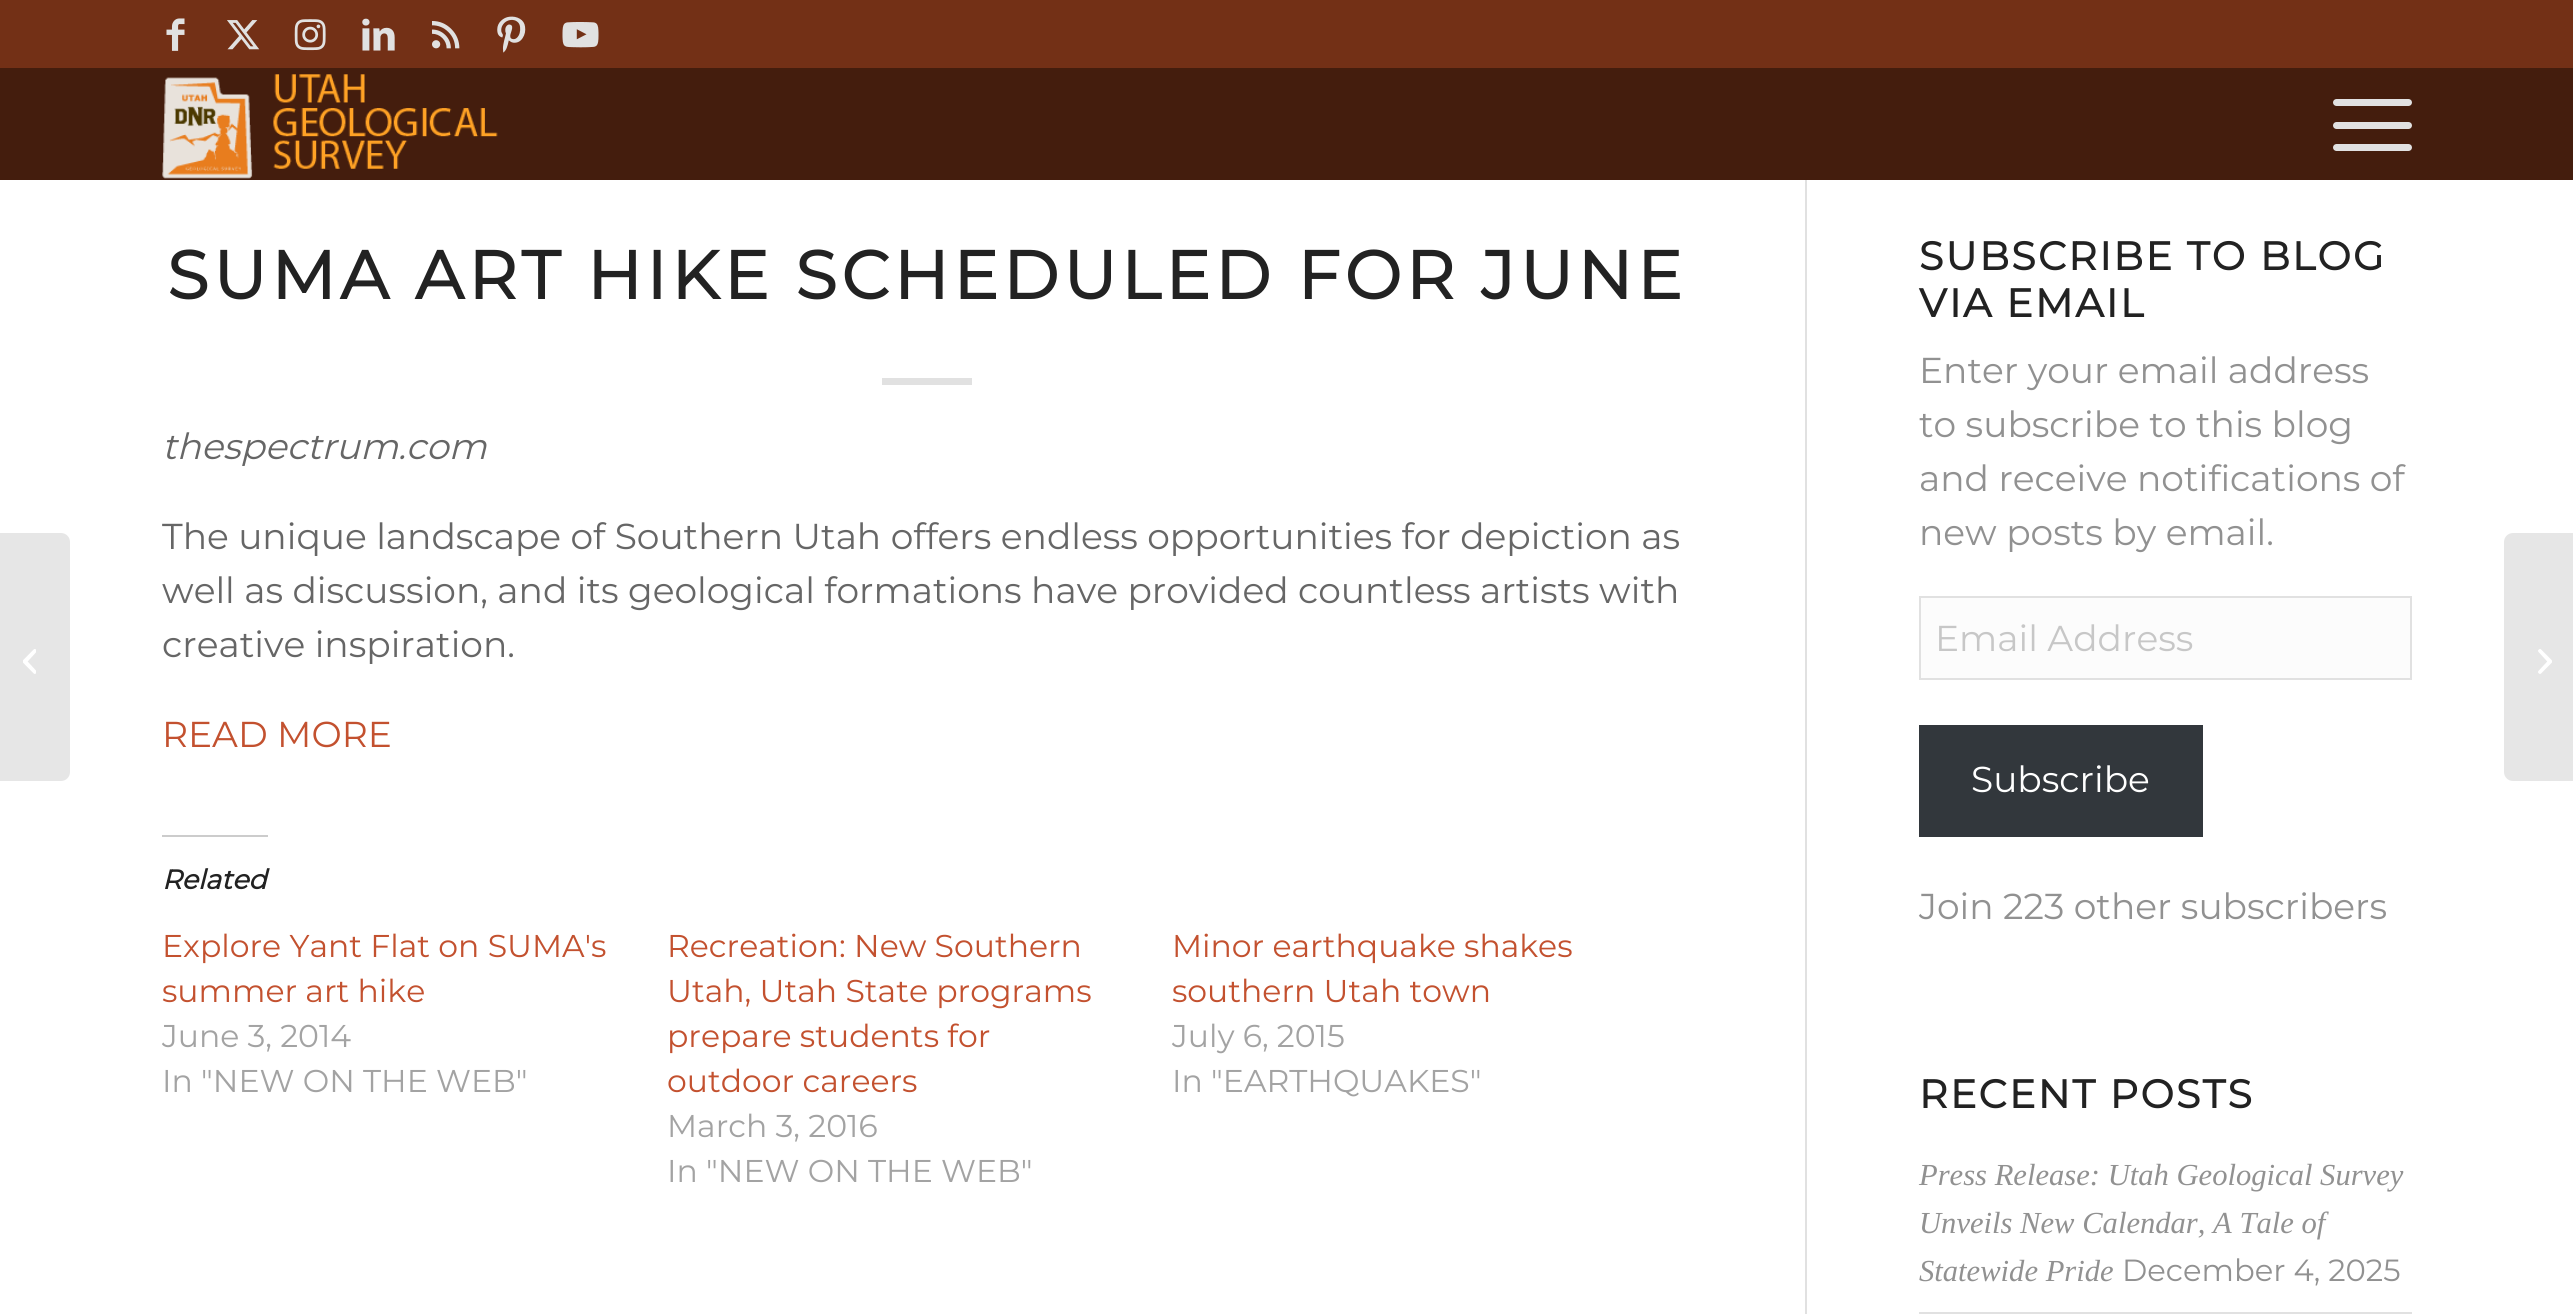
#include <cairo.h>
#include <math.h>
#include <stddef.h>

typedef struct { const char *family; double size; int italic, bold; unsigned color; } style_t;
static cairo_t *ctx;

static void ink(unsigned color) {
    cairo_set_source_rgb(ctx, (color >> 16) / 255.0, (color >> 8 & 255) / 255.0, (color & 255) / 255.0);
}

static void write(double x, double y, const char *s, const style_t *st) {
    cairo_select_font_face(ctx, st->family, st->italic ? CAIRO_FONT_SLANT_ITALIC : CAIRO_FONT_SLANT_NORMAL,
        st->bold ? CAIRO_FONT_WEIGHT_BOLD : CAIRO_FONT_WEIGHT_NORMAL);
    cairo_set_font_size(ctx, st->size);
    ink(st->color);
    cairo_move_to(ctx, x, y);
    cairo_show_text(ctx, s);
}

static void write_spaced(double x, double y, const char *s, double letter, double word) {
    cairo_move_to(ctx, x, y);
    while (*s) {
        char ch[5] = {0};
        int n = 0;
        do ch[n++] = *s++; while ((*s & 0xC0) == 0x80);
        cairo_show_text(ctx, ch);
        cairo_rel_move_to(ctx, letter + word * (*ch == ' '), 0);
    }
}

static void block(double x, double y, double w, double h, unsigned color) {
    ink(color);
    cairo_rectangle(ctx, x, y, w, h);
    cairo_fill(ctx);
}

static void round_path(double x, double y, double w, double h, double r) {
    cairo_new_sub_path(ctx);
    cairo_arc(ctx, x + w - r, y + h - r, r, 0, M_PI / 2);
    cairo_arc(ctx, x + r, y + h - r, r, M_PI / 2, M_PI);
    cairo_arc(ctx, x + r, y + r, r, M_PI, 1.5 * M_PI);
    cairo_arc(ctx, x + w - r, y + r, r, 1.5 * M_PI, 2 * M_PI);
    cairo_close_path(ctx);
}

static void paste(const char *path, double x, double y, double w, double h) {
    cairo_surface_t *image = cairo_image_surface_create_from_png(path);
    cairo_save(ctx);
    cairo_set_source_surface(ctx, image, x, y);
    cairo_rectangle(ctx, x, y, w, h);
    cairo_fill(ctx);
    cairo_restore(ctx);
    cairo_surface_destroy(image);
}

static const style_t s1 = {"Montserrat Thin", 36, 1, 0, 0x666666};
static const style_t s2 = {"Montserrat Thin", 36, 0, 0, 0x666666};
static const style_t s3 = {"Montserrat Thin", 36, 0, 0, 0xc3512f};
static const style_t s4 = {"Montserrat", 27, 1, 1, 0x222222};
static const style_t s5 = {"Montserrat Thin", 31.5, 0, 0, 0xc3512f};
static const style_t s6 = {"Montserrat Thin", 31.5, 0, 0, 0xa3a3a3};
static const style_t s7 = {"Montserrat Thin", 36, 0, 0, 0x919191};
static const style_t s8 = {"Montserrat Thin", 36, 0, 0, 0xc7c7c7};
static const style_t s9 = {"Montserrat Thin", 36, 0, 0, 0xffffff};
static const style_t s10 = {"Liberation Serif", 30.6, 1, 0, 0x919191};
static const style_t s11 = {"Montserrat Thin", 30.6, 0, 0, 0x919191};

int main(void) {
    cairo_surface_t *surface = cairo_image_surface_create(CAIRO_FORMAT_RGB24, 2573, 1314);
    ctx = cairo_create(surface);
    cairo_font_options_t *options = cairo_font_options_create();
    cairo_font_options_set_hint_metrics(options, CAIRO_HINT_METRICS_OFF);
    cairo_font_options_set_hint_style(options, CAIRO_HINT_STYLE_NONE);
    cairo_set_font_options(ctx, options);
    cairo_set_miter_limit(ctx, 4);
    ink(0xffffff);
    cairo_paint(ctx);
    block(0, 0, 2573, 68, 0x733016);
    paste("pic1.png", 166, 18, 19, 33);
    paste("pic2.png", 227, 20, 33, 30);
    paste("pic3.png", 294, 19, 32, 32);
    paste("pic4.png", 362, 18, 33, 33);
    paste("pic5.png", 432, 21, 28, 28);
    paste("pic6.png", 497, 16, 29, 37);
    paste("pic7.png", 562, 22, 37, 26);
    block(1805, 176, 2, 1138, 0xe1e1e1);
    block(0, 68, 2573, 112, 0x441d0d);
    paste("pic8.png", 162, 74, 336, 105);
    ink(0xe1e1e1);
    round_path(2333, 122, 79, 7, 3.5);
    cairo_fill(ctx);
    round_path(2333, 99, 79, 7, 3.5);
    cairo_fill(ctx);
    round_path(2333, 144, 79, 7, 3.5);
    cairo_fill(ctx);
    ink(0xe6e6e6);
    cairo_new_path(ctx);
    cairo_move_to(ctx, 0, 533);
    cairo_line_to(ctx, 61, 533);
    cairo_curve_to(ctx, 66, 533, 70, 537, 70, 542);
    cairo_line_to(ctx, 70, 772);
    cairo_curve_to(ctx, 70, 777, 66, 781, 61, 781);
    cairo_line_to(ctx, 0, 781);
    cairo_close_path(ctx);
    cairo_fill(ctx);
    paste("pic9.png", 23, 649, 13, 25);
    cairo_select_font_face(ctx, "Montserrat", CAIRO_FONT_SLANT_NORMAL, CAIRO_FONT_WEIGHT_BOLD);
    cairo_set_font_size(ctx, 67.5);
    ink(0x222222);
    write_spaced(167, 299, "SUMA ART HIKE SCHEDULED FOR JUNE", 4.5, 0);
    block(882, 378, 90, 7, 0xe1e1e1);
    write(162, 459, "thespectrum.com", &s1);
    write(162, 549, "The unique landscape of Southern Utah offers endless opportunities for depiction as", &s2);
    write(162, 603, "well as discussion, and its geological formations have provided countless artists with", &s2);
    write(162, 657, "creative inspiration.", &s2);
    write(162, 747, "READ MORE", &s3);
    block(162, 835, 106, 2, 0xcccccc);
    write(162, 889, "Related", &s4);
    write(162, 957, "Explore Yant Flat on SUMA's", &s5);
    write(162, 1002, "summer art hike", &s5);
    write(162, 1047, "June 3, 2014", &s6);
    write(162, 1092, "In \"NEW ON THE WEB\"", &s6);
    write(667, 957, "Recreation: New Southern", &s5);
    write(667, 1002, "Utah, Utah State programs", &s5);
    write(667, 1047, "prepare students for", &s5);
    write(667, 1092, "outdoor careers", &s5);
    write(667, 1137, "March 3, 2016", &s6);
    write(667, 1182, "In \"NEW ON THE WEB\"", &s6);
    write(1172, 957, "Minor earthquake shakes", &s5);
    write(1172, 1002, "southern Utah town", &s5);
    write(1172, 1047, "July 6, 2015", &s6);
    write(1172, 1092, "In \"EARTHQUAKES\"", &s6);
    cairo_select_font_face(ctx, "Montserrat", CAIRO_FONT_SLANT_NORMAL, CAIRO_FONT_WEIGHT_BOLD);
    cairo_set_font_size(ctx, 39.6);
    ink(0x222222);
    write_spaced(1919, 270, "SUBSCRIBE TO BLOG", 2.25, 0);
    write_spaced(1919, 317, "VIA EMAIL", 2.25, 0);
    write(1919, 383, "Enter your email address", &s7);
    write(1919, 437, "to subscribe to this blog", &s7);
    write(1919, 491, "and receive notifications of", &s7);
    write(1919, 545, "new posts by email.", &s7);
    ink(0xfcfcfc);
    cairo_rectangle(ctx, 1920, 597, 491, 82);
    cairo_fill_preserve(ctx);
    ink(0xe1e1e1);
    cairo_stroke(ctx);
    write(1935, 651, "Email Address", &s8);
    block(1919, 725, 284, 112, 0x32373c);
    write(1971, 792, "Subscribe", &s9);
    write(1919, 919, "Join 223 other subscribers", &s7);
    cairo_select_font_face(ctx, "Montserrat", CAIRO_FONT_SLANT_NORMAL, CAIRO_FONT_WEIGHT_BOLD);
    cairo_set_font_size(ctx, 39.6);
    ink(0x222222);
    write_spaced(1919, 1108, "RECENT POSTS", 2.25, 0);
    write(1919, 1185, "Press Release: Utah Geological Survey", &s10);
    write(1919, 1233, "Unveils New Calendar, A Tale of", &s10);
    write(1919, 1281, "Statewide Pride", &s10);
    write(2122, 1281, "December 4, 2025", &s11);
    block(1919, 1312, 493, 2, 0xe1e1e1);
    ink(0xe6e6e6);
    cairo_new_path(ctx);
    cairo_move_to(ctx, 2513, 533);
    cairo_line_to(ctx, 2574, 533);
    cairo_line_to(ctx, 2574, 781);
    cairo_line_to(ctx, 2513, 781);
    cairo_curve_to(ctx, 2508, 781, 2504, 777, 2504, 772);
    cairo_line_to(ctx, 2504, 542);
    cairo_curve_to(ctx, 2504, 537, 2508, 533, 2513, 533);
    cairo_close_path(ctx);
    cairo_fill(ctx);
    paste("pic10.png", 2538, 649, 14, 25);
    cairo_surface_write_to_png(surface, "screenshot.png");
    cairo_font_options_destroy(options);
    cairo_destroy(ctx);
    cairo_surface_destroy(surface);
    return 0;
}
